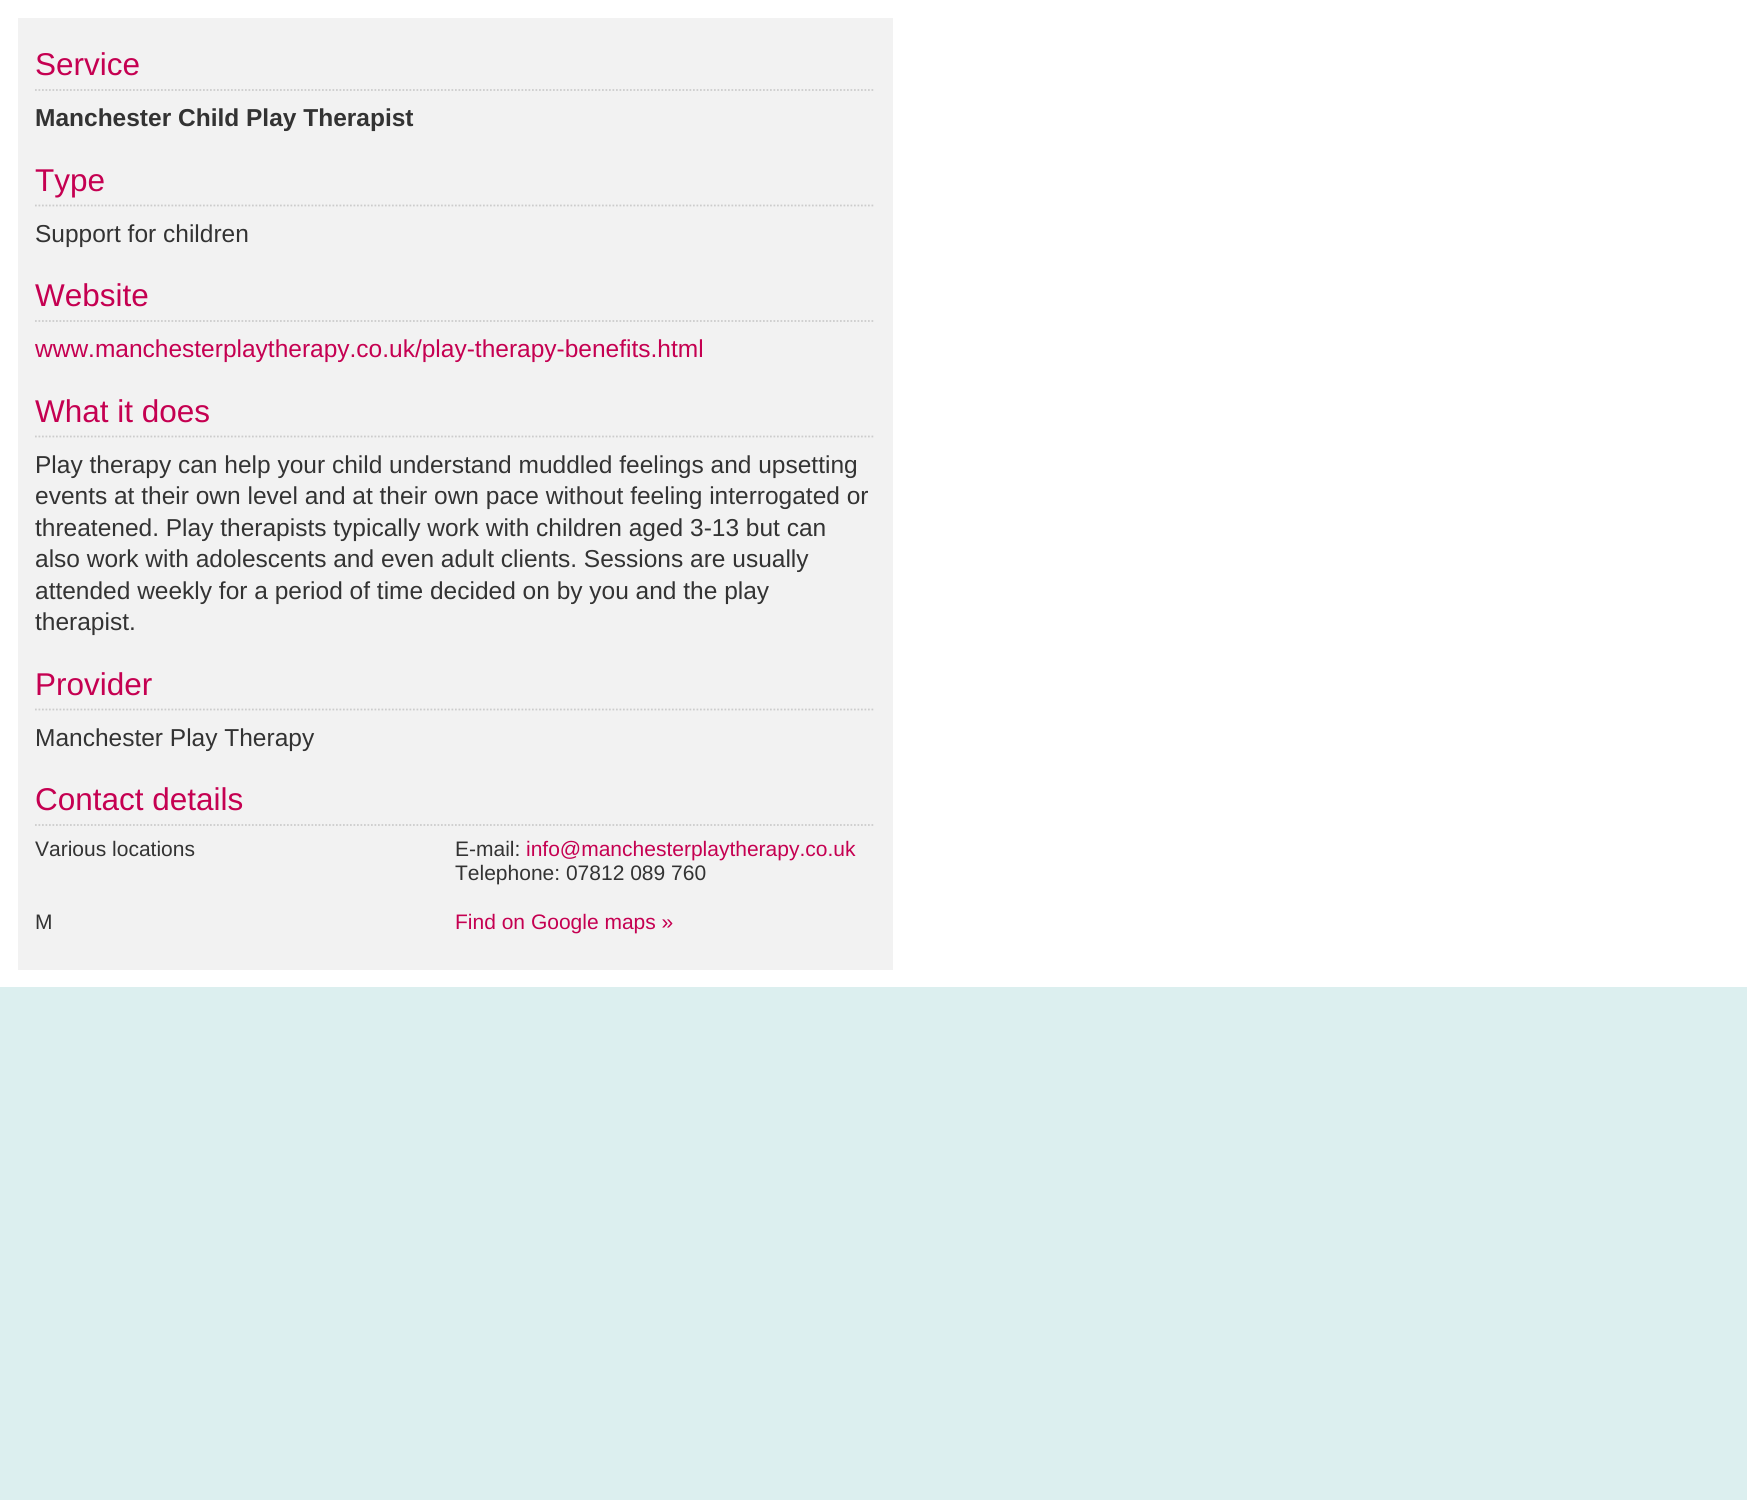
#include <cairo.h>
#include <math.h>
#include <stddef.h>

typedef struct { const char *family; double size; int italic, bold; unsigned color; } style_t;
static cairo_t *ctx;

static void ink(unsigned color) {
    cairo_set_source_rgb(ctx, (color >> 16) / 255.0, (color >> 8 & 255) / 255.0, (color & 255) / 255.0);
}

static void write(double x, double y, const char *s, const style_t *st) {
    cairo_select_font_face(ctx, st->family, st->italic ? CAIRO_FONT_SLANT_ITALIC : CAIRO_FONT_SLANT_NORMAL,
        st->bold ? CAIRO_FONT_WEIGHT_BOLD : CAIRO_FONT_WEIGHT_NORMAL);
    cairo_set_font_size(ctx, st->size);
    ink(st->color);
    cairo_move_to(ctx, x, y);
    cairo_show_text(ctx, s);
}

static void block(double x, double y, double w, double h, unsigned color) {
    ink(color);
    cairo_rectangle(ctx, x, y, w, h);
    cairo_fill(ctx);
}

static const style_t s1 = {"Liberation Sans", 31.5, 0, 0, 0xc50051};
static const style_t s2 = {"Liberation Sans", 24.5, 0, 1, 0x333333};
static const style_t s3 = {"Liberation Sans", 24.5, 0, 0, 0x333333};
static const style_t s4 = {"Liberation Sans", 24.5, 0, 0, 0xc50051};
static const style_t s5 = {"Liberation Sans", 21, 0, 0, 0x333333};
static const style_t s6 = {"Liberation Sans", 21, 0, 0, 0xc50051};

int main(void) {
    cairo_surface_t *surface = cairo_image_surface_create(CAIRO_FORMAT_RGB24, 1747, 1500);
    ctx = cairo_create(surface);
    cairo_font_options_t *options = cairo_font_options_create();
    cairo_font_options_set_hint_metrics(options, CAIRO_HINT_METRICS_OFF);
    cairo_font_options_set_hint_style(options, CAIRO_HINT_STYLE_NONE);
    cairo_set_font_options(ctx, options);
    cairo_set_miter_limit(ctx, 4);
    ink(0xdcefef);
    cairo_paint(ctx);
    block(0, 0, 1747, 987, 0xffffff);
    block(18, 18, 875, 952, 0xf2f2f2);
    cairo_new_path(ctx);
    cairo_move_to(ctx, 35, 90);
    cairo_line_to(ctx, 875, 90);
    ink(0xcccccc);
    cairo_set_line_width(ctx, 1.8);
    cairo_set_dash(ctx, (double[]){1.75, 1.75}, 2, 0);
    cairo_stroke(ctx);
    write(35, 75, "Service", &s1);
    write(35, 126, "Manchester Child Play Therapist", &s2);
    cairo_new_path(ctx);
    cairo_move_to(ctx, 35, 205.5);
    cairo_line_to(ctx, 875, 205.5);
    ink(0xcccccc);
    cairo_stroke(ctx);
    write(35, 191, "Type", &s1);
    write(35, 242, "Support for children", &s3);
    cairo_new_path(ctx);
    cairo_move_to(ctx, 35, 321);
    cairo_line_to(ctx, 875, 321);
    ink(0xcccccc);
    cairo_stroke(ctx);
    write(35, 306, "Website", &s1);
    write(35, 357, "www.manchesterplaytherapy.co.uk/play-therapy-benefits.html", &s4);
    cairo_new_path(ctx);
    cairo_move_to(ctx, 35, 436.5);
    cairo_line_to(ctx, 875, 436.5);
    ink(0xcccccc);
    cairo_stroke(ctx);
    write(35, 422, "What it does", &s1);
    write(35, 473, "Play therapy can help your child understand muddled feelings and upsetting", &s3);
    write(35, 504, "events at their own level and at their own pace without feeling interrogated or", &s3);
    write(35, 536, "threatened. Play therapists typically work with children aged 3-13 but can", &s3);
    write(35, 567, "also work with adolescents and even adult clients. Sessions are usually", &s3);
    write(35, 599, "attended weekly for a period of time decided on by you and the play", &s3);
    write(35, 630, "therapist.", &s3);
    cairo_new_path(ctx);
    cairo_move_to(ctx, 35, 709.5);
    cairo_line_to(ctx, 875, 709.5);
    ink(0xcccccc);
    cairo_stroke(ctx);
    write(35, 695, "Provider", &s1);
    write(35, 746, "Manchester Play Therapy", &s3);
    cairo_new_path(ctx);
    cairo_move_to(ctx, 35, 825);
    cairo_line_to(ctx, 875, 825);
    ink(0xcccccc);
    cairo_stroke(ctx);
    write(35, 810, "Contact details", &s1);
    write(35, 856, "Various locations", &s5);
    write(35, 929, "M", &s5);
    write(455, 856, "E-mail:", &s5);
    write(526, 856, "info@manchesterplaytherapy.co.uk", &s6);
    write(455, 880, "Telephone: 07812 089 760", &s5);
    write(455, 929, "Find on Google maps »", &s6);
    cairo_surface_write_to_png(surface, "screenshot.png");
    cairo_font_options_destroy(options);
    cairo_destroy(ctx);
    cairo_surface_destroy(surface);
    return 0;
}
